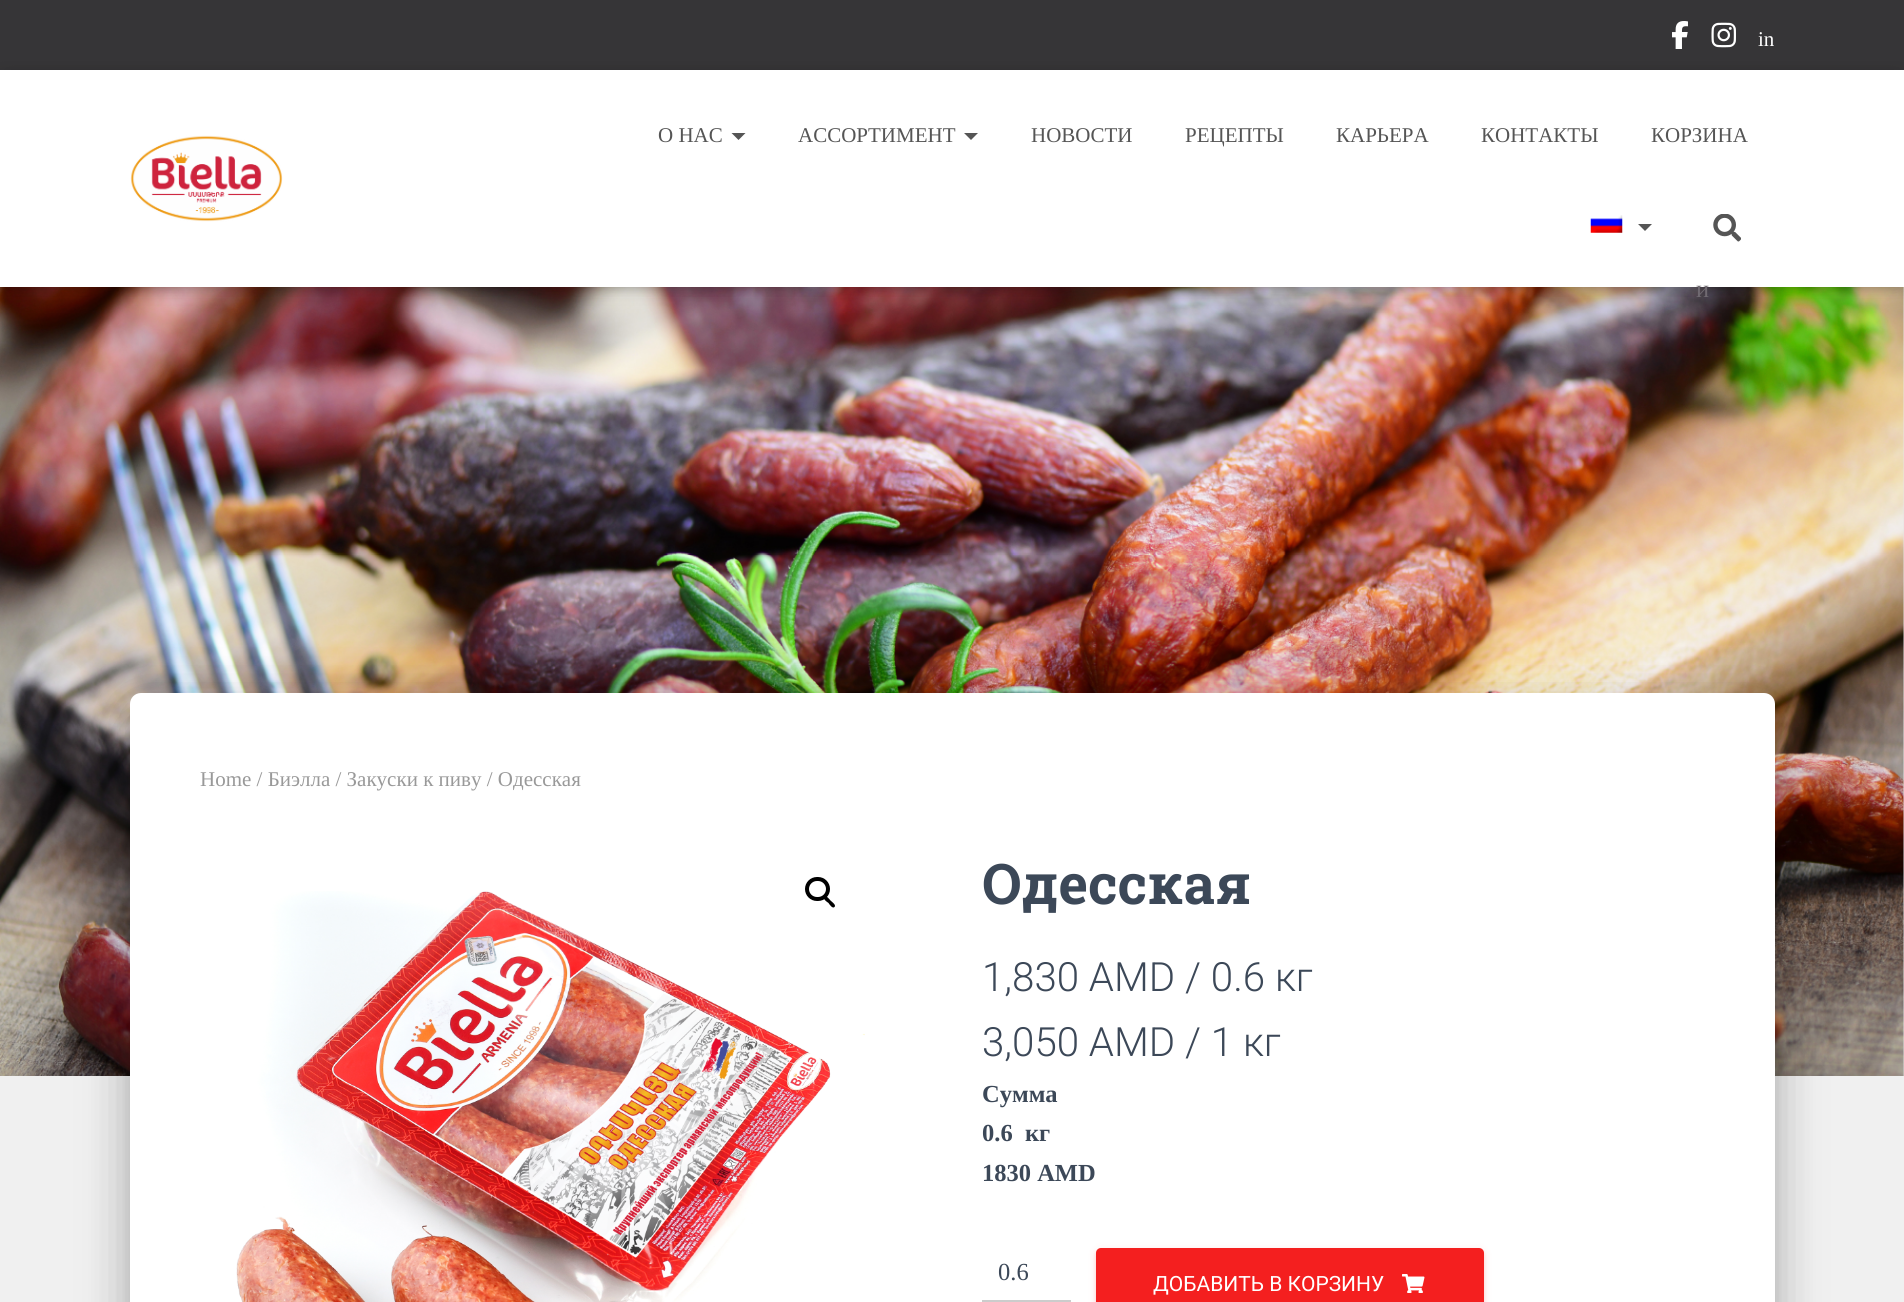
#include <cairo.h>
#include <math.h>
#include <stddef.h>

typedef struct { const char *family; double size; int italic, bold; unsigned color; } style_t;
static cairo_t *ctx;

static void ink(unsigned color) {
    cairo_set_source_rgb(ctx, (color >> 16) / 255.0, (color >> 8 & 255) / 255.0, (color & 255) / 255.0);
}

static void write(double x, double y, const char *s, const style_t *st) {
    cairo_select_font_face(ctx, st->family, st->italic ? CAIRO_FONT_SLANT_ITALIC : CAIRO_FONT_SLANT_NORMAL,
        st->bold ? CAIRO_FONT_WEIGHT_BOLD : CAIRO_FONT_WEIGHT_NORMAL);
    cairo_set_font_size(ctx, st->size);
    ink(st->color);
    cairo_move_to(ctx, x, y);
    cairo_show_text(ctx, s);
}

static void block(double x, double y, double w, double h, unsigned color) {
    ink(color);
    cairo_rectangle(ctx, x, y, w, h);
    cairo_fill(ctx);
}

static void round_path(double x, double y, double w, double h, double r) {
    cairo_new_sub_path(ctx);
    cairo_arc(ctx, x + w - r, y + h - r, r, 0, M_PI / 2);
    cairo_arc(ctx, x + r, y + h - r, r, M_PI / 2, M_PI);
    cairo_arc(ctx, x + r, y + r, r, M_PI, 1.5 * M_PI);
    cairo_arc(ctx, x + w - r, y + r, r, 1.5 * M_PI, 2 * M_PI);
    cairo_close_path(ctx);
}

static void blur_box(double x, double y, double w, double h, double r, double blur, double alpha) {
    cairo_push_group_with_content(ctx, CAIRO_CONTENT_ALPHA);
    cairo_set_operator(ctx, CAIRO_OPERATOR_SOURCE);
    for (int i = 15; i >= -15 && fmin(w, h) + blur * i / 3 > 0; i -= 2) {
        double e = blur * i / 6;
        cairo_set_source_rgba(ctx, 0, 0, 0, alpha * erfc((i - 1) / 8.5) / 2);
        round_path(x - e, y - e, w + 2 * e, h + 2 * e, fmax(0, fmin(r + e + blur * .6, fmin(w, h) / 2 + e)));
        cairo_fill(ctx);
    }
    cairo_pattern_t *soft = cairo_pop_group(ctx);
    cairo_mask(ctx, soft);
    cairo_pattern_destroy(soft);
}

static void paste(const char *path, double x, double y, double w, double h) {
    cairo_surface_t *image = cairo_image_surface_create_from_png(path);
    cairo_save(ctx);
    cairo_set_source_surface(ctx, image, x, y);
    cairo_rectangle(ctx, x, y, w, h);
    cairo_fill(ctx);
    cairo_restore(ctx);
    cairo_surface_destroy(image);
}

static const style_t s1 = {"Liberation Serif", 21, 0, 0, 0xffffff};
static const style_t s2 = {"Liberation Serif", 21, 0, 0, 0x555555};
static const style_t s3 = {"Liberation Serif", 24.5, 0, 0, 0x706a71};
static const style_t s4 = {"Liberation Serif", 21, 0, 0, 0x999999};
static const style_t s5 = {"Roboto Slab", 56, 0, 1, 0x3c4858};
static const style_t s6 = {"Roboto Light", 40.25, 0, 0, 0x3c4858};
static const style_t s7 = {"Liberation Serif", 24.5, 0, 1, 0x3c4858};
static const style_t s8 = {"Liberation Serif", 24.5, 0, 0, 0x3c4858};
static const style_t s9 = {"Roboto", 21, 0, 0, 0xffffff};

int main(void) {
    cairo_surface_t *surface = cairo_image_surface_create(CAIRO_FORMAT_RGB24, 1904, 1302);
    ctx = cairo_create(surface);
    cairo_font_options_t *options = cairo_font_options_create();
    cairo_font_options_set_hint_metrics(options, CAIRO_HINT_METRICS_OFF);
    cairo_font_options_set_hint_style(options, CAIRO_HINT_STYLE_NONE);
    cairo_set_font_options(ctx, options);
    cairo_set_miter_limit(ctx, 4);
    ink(0xe5e5e5);
    cairo_paint(ctx);
    block(0, 0, 1904, 70, 0x363537);
    paste("pic1.png", 1672, 21, 16, 28);
    paste("pic2.png", 1711, 22, 25, 26);
    write(1758, 46, "in", &s1);
    paste("pic6.png", 0, 287, 1904, 789);
    ink(0x000000);
    blur_box(4, 81, 1897, 210, 0, 4.5, 0.1);
    blur_box(0, 72, 1904, 217, 0, 9, 0.12);
    blur_box(11, 82, 1883, 196, 0, 9, 0.42);
    block(0, 70, 1904, 217, 0xffffff);
    paste("pic3.png", 130, 135, 153, 87);
    write(658, 142, "О НАС", &s2);
    cairo_new_path(ctx);
    cairo_move_to(ctx, 731.5, 133);
    cairo_line_to(ctx, 745.5, 133);
    cairo_line_to(ctx, 738.5, 140);
    cairo_close_path(ctx);
    cairo_fill(ctx);
    write(798, 142, "АССОРТИМЕНТ", &s2);
    cairo_new_path(ctx);
    cairo_move_to(ctx, 964, 133);
    cairo_line_to(ctx, 978, 133);
    cairo_line_to(ctx, 971, 140);
    cairo_close_path(ctx);
    cairo_fill(ctx);
    write(1031, 142, "НОВОСТИ", &s2);
    write(1185, 142, "РЕЦЕПТЫ", &s2);
    write(1336, 142, "КАРЬЕРА", &s2);
    write(1481, 142, "КОНТАКТЫ", &s2);
    write(1651, 142, "КОРЗИНА", &s2);
    paste("pic4.png", 1590, 215, 33, 18);
    cairo_new_path(ctx);
    cairo_move_to(ctx, 1638, 224);
    cairo_line_to(ctx, 1652, 224);
    cairo_line_to(ctx, 1645, 231);
    cairo_close_path(ctx);
    cairo_fill(ctx);
    paste("pic5.png", 1713, 214, 28, 28);
    write(1696, 297, "и", &s3);
    ink(0x000000);
    blur_box(-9, 1078, 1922, 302, 0, 26, 0.12);
    block(0, 1076, 1904, 226, 0xf0f0f0);
    ink(0x000000);
    blur_box(138, 716, 1628, 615, 2, 9, 0.2);
    blur_box(121, 695, 1662, 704, 19, 26, 0.12);
    blur_box(126, 718, 1652, 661, 14, 21, 0.14);
    ink(0xffffff);
    round_path(130, 693, 1645, 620, 11);
    cairo_fill(ctx);
    write(200, 786, "Home / Биэлла / Закуски к пиву / Одесская", &s4);
    paste("pic7.png", 236, 891, 629, 411);
    round_path(807, 879, 21, 20, 10);
    ink(0x000000);
    cairo_set_line_width(ctx, 4);
    cairo_stroke(ctx);
    cairo_new_path(ctx);
    cairo_move_to(ctx, 824.5, 897);
    cairo_curve_to(ctx, 826.5, 895, 829.5, 899.5, 830.5, 900.5);
    cairo_curve_to(ctx, 832, 902, 836.5, 905, 834.5, 907);
    cairo_curve_to(ctx, 832.5, 909, 829.5, 904.5, 828.5, 903);
    cairo_curve_to(ctx, 827, 902, 822.5, 899, 824.5, 897);
    cairo_close_path(ctx);
    cairo_fill(ctx);
    write(982, 904, "Одесская", &s5);
    write(982, 991, "1,830 AMD / 0.6 кг", &s6);
    write(982, 1056, "3,050 AMD / 1 кг", &s6);
    write(982, 1102, "Сумма", &s7);
    write(982, 1141, "0.6", &s7);
    write(1025, 1141, "кг", &s7);
    write(982, 1181, "1830 AMD", &s7);
    block(982, 1300, 89, 2, 0xcccccc);
    write(998, 1280, "0.6", &s8);
    ink(0xf41f1f);
    blur_box(1096, 1250, 388, 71, 5, 4.5, 0.12);
    blur_box(1096, 1251, 388, 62, 5, 2, 0.14);
    ink(0xf41f1f);
    round_path(1096, 1248, 388, 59, 5);
    cairo_fill(ctx);
    write(1153, 1291, "ДОБАВИТЬ В КОРЗИНУ", &s9);
    paste("pic8.png", 1402, 1274, 23, 19);
    cairo_surface_write_to_png(surface, "screenshot.png");
    cairo_font_options_destroy(options);
    cairo_destroy(ctx);
    cairo_surface_destroy(surface);
    return 0;
}
